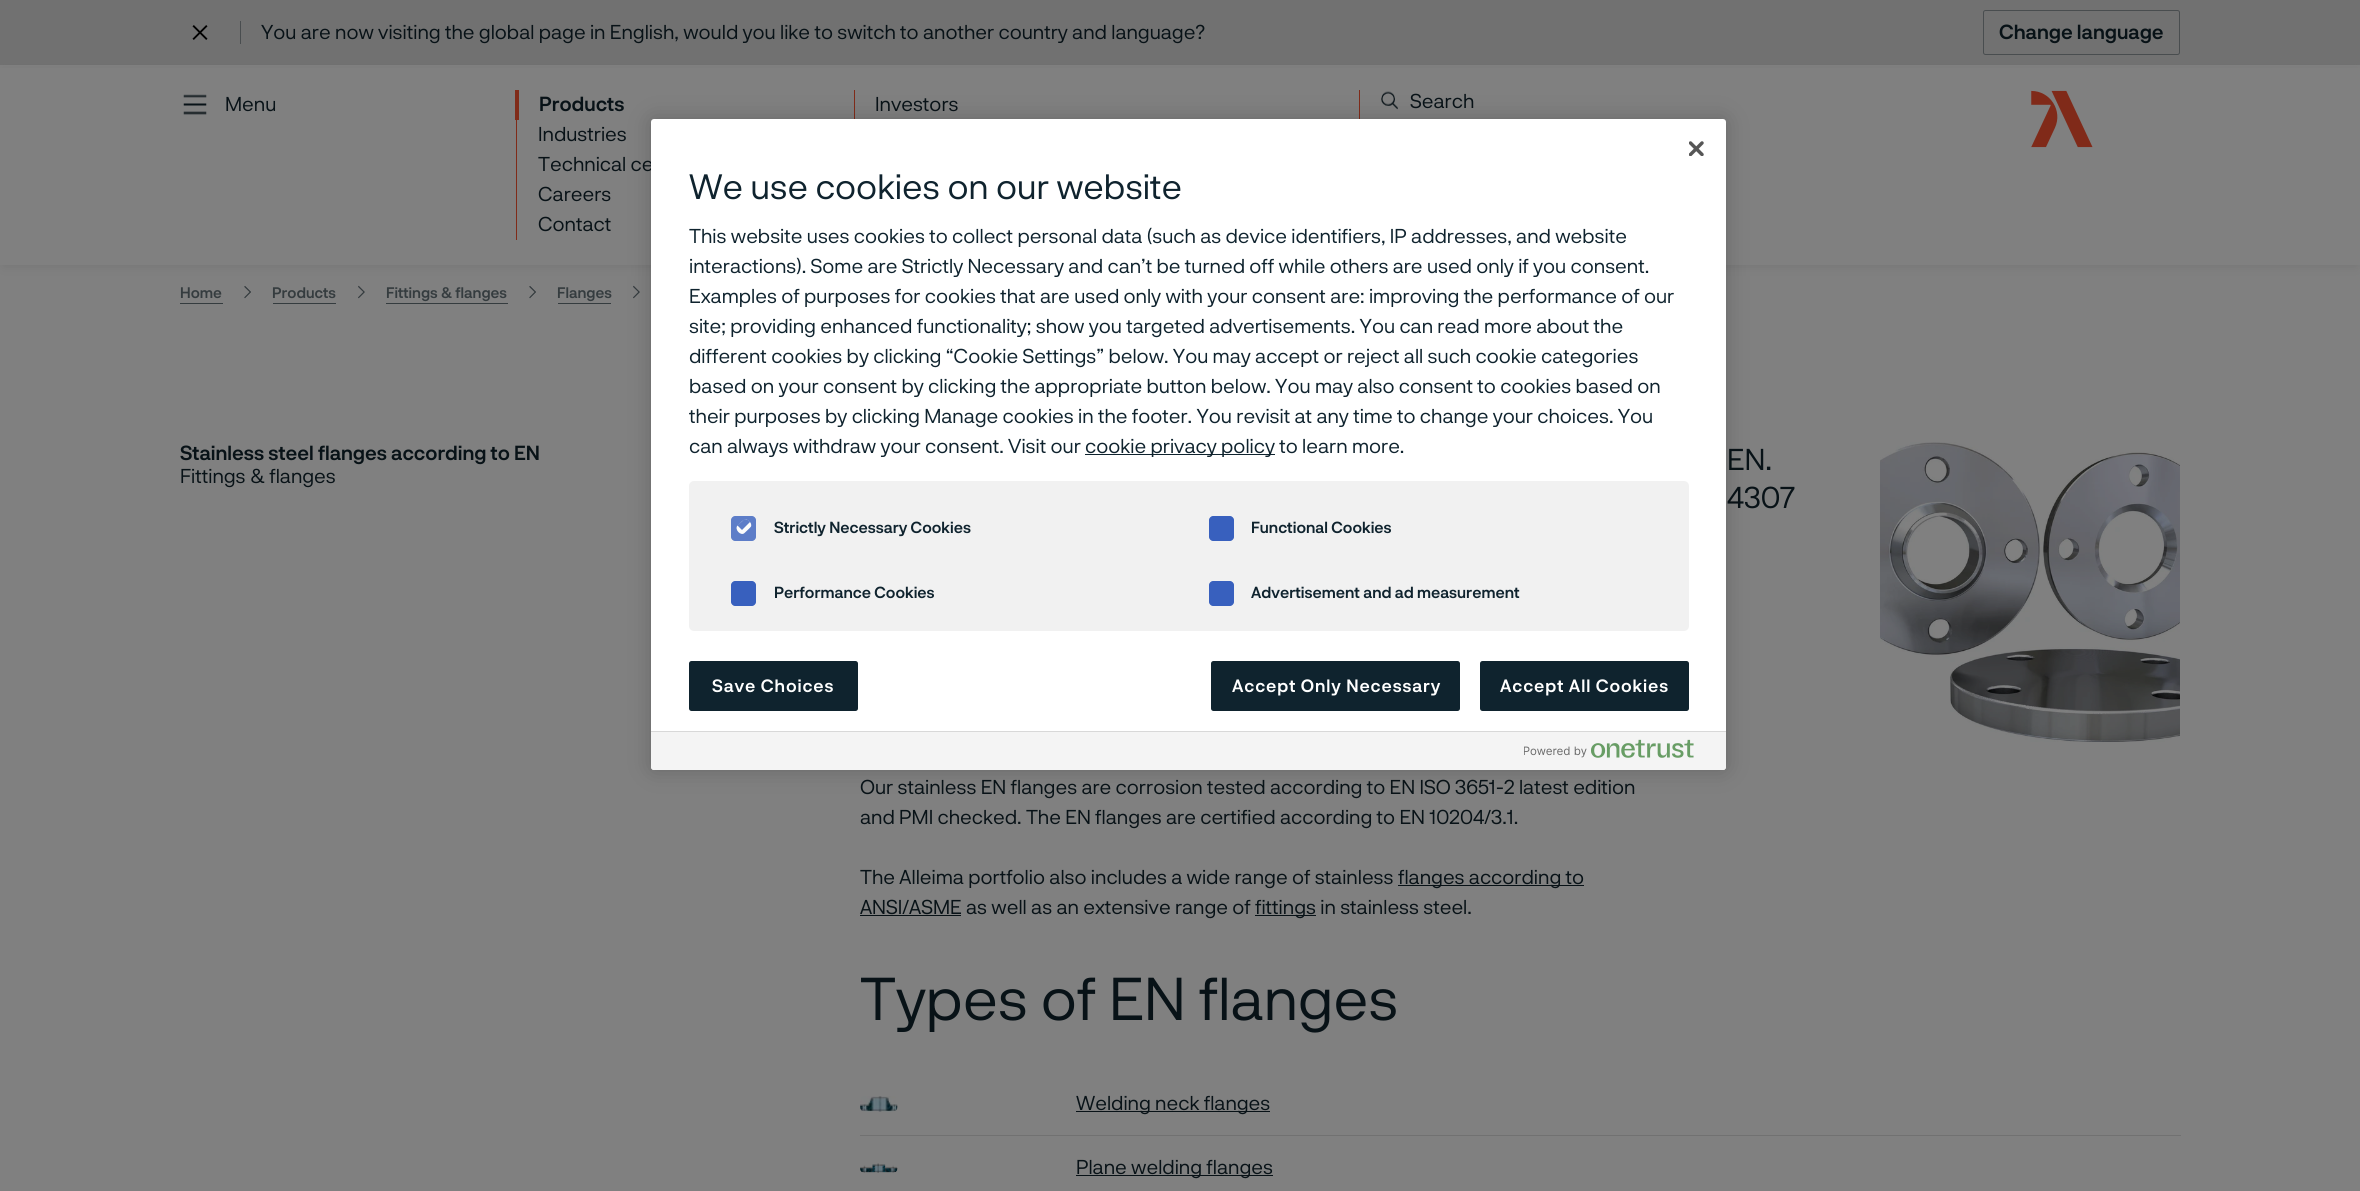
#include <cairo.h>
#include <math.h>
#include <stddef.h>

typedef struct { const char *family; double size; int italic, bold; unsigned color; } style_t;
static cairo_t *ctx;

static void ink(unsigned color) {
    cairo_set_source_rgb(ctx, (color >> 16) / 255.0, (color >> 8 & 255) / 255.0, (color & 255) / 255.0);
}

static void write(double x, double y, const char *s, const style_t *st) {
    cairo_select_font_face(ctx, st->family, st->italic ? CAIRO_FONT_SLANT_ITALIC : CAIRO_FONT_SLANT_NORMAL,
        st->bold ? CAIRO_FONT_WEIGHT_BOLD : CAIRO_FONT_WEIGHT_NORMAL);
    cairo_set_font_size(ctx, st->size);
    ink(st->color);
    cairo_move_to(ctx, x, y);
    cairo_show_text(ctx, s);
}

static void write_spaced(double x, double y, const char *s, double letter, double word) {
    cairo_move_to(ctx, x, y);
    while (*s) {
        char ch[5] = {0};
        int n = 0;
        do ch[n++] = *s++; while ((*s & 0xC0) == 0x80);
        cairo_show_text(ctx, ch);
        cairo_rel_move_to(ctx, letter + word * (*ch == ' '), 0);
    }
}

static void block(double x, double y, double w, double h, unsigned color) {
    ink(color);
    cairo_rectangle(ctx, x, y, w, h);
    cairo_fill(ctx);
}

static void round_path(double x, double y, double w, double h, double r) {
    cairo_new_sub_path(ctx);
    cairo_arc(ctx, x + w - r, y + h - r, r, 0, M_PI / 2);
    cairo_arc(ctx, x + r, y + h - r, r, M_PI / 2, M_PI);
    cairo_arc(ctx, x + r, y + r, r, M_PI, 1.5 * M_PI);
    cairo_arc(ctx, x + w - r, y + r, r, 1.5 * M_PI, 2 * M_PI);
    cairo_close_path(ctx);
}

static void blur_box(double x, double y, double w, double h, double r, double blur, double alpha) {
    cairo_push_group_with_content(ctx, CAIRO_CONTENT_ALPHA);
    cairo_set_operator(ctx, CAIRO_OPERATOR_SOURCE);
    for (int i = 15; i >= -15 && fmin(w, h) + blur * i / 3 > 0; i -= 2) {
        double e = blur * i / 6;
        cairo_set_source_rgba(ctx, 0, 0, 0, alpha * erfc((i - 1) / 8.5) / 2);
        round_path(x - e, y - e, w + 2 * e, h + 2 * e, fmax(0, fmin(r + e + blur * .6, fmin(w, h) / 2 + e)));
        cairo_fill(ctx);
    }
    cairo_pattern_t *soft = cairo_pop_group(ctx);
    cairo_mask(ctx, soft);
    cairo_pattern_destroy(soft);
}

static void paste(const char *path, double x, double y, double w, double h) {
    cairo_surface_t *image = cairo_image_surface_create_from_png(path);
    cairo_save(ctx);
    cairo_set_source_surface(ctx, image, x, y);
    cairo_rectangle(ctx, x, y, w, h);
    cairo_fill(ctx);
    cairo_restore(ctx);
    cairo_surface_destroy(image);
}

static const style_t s1 = {"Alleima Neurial", 20, 0, 0, 0x081217};
static const style_t s2 = {"Alleima Neurial", 20, 0, 1, 0x081217};
static const style_t s3 = {"Alleima Neurial", 15, 0, 1, 0x353c3f};
static const style_t s4 = {"Alleima Neurial", 30, 0, 0, 0x081217};
static const style_t s5 = {"Alleima Neurial", 60, 0, 0, 0x081217};
static const style_t s6 = {"Alleima Neurial", 35, 0, 0, 0x0f232e};
static const style_t s7 = {"Alleima Neurial", 20, 0, 0, 0x0f232e};
static const style_t s8 = {"Alleima Neurial", 15.75, 0, 1, 0x0f232e};

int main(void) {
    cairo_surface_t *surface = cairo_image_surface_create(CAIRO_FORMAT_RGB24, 2360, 1191);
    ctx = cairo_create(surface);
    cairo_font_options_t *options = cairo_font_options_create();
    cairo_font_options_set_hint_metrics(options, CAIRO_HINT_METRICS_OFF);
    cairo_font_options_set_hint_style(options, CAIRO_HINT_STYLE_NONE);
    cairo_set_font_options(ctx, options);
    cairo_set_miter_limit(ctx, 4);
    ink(0x808080);
    cairo_paint(ctx);
    block(0, 0, 2360, 65, 0x717171);
    paste("pic1.png", 192, 25, 16, 15);
    block(240, 21, 1, 23, 0x494d4f);
    write(261, 39, "You are now visiting the global page in English, would you like to switch to another country and language?", &s1);
    round_path(1983.5, 10.5, 196, 44, 2);
    ink(0x494d4f);
    cairo_set_line_width(ctx, 1);
    cairo_stroke(ctx);
    write(1999, 39, "Change language", &s2);
    ink(0x000000);
    blur_box(4, 73, 2352, 192, 0, 6, 0.1);
    block(0, 68, 2360, 197, 0x808080);
    paste("pic2.png", 183, 94, 24, 21);
    write(225, 111, "Menu", &s1);
    block(516, 120, 1, 120, 0x802b19);
    block(515, 90, 4, 30, 0x802b19);
    write(539, 111, "Products", &s2);
    write(538, 141, "Industries", &s1);
    write(538, 171, "Technical ce", &s1);
    write(538, 201, "Careers", &s1);
    write(538, 231, "Contact", &s1);
    block(854, 90, 1, 29, 0x802b19);
    write(875, 111, "Investors", &s1);
    block(1359, 90, 1, 29, 0x802b19);
    paste("pic3.png", 1381, 91, 17, 19);
    write(1410, 108, "Search", &s1);
    paste("pic4.png", 2031, 90, 62, 58);
    write(180, 298, "Home", &s3);
    block(180, 303, 43, 1, 0x353c3f);
    paste("pic5.png", 244, 286, 7, 13);
    write(272, 298, "Products", &s3);
    block(273, 303, 63, 1, 0x353c3f);
    paste("pic6.png", 358, 285, 7, 14);
    write(386, 298, "Fittings & flanges", &s3);
    block(386, 303, 122, 1, 0x353c3f);
    paste("pic5.png", 529, 286, 7, 13);
    write(557, 298, "Flanges", &s3);
    block(558, 303, 53, 1, 0x353c3f);
    paste("pic6.png", 633, 285, 7, 14);
    write(180, 460, "Stainless steel flanges according to EN", &s2);
    write(180, 483, "Fittings & flanges", &s1);
    write(1727, 470, "EN.", &s4);
    write(1727, 508, "4307", &s4);
    paste("pic7.png", 1880, 442, 300, 300);
    write(860, 794, "Our stainless EN flanges are corrosion tested according to EN ISO 3651-2 latest edition", &s1);
    write(860, 824, "and PMI checked. The EN flanges are certified according to EN 10204/3.1.", &s1);
    write(860, 884, "The Alleima portfolio also includes a wide range of stainless", &s1);
    block(1398, 885, 186, 1, 0x081217);
    write(1398, 884, "flanges according to", &s1);
    block(860, 915, 101, 1, 0x081217);
    write(860, 914, "ANSI/ASME as well as an extensive range of", &s1);
    block(1255, 915, 61, 1, 0x081217);
    write(1255, 914, "fittings in stainless steel.", &s1);
    write(860, 1020, "Types of EN flanges", &s5);
    block(860, 1135, 1321, 1, 0x717171);
    paste("pic8.png", 860, 1096, 38, 16);
    block(1076, 1111, 194, 1, 0x081217);
    write(1076, 1110, "Welding neck flanges", &s1);
    paste("pic9.png", 860, 1163, 38, 10);
    block(1076, 1175, 197, 1, 0x081217);
    write(1076, 1174, "Plane welding flanges", &s1);
    ink(0x000000);
    blur_box(651, 119, 1075, 651, 3, 11, 0.2);
    ink(0xffffff);
    round_path(651, 119, 1075, 651, 3);
    cairo_fill(ctx);
    paste("pic10.png", 1689, 141, 15, 15);
    write(689, 199, "We use cookies on our website", &s6);
    write(689, 243, "This website uses cookies to collect personal data (such as device identifiers, IP addresses, and website", &s7);
    write(689, 273, "interactions). Some are Strictly Necessary and can’t be turned off while others are used only if you consent.", &s7);
    write(689, 303, "Examples of purposes for cookies that are used only with your consent are: improving the performance of our", &s7);
    write(689, 333, "site; providing enhanced functionality; show you targeted advertisements. You can read more about the", &s7);
    write(689, 363, "different cookies by clicking “Cookie Settings” below. You may accept or reject all such cookie categories", &s7);
    write(689, 393, "based on your consent by clicking the appropriate button below. You may also consent to cookies based on", &s7);
    write(689, 423, "their purposes by clicking Manage cookies in the footer. You revisit at any time to change your choices. You", &s7);
    write(689, 453, "can always withdraw your consent. Visit our", &s7);
    block(1085, 454, 190, 1, 0x0f232e);
    write(1085, 453, "cookie privacy policy to learn more.", &s7);
    ink(0xf1f1f1);
    round_path(689, 481, 1000, 150, 5);
    cairo_fill(ctx);
    ink(0x5d7dc8);
    cairo_new_path(ctx);
    cairo_move_to(ctx, 735, 516);
    cairo_line_to(ctx, 752, 516);
    cairo_curve_to(ctx, 754, 516, 756, 518, 756, 520);
    cairo_line_to(ctx, 756, 537);
    cairo_curve_to(ctx, 756, 539, 754, 541, 752, 541);
    cairo_line_to(ctx, 735, 541);
    cairo_curve_to(ctx, 733, 541, 731, 539, 731, 537);
    cairo_line_to(ctx, 731, 520);
    cairo_curve_to(ctx, 731, 518, 733, 516, 735, 516);
    cairo_close_path(ctx);
    cairo_fill(ctx);
    ink(0xfcfcfc);
    cairo_set_fill_rule(ctx, CAIRO_FILL_RULE_EVEN_ODD);
    cairo_new_path(ctx);
    cairo_move_to(ctx, 737.5, 525.5);
    cairo_line_to(ctx, 743, 520.5);
    cairo_curve_to(ctx, 746.5, 517.5, 752.5, 522.5, 751, 526.5);
    cairo_curve_to(ctx, 750, 528, 746, 531.5, 744.5, 533);
    cairo_curve_to(ctx, 741, 536.5, 734, 529.5, 737.5, 525.5);
    cairo_close_path(ctx);
    cairo_move_to(ctx, 737.5, 525.5);
    cairo_curve_to(ctx, 740, 523.5, 744, 517.5, 747.5, 520);
    cairo_line_to(ctx, 750, 522);
    cairo_line_to(ctx, 742, 530);
    cairo_close_path(ctx);
    cairo_fill(ctx);
    write(774, 533, "Strictly Necessary Cookies", &s8);
    ink(0x3860be);
    cairo_set_fill_rule(ctx, CAIRO_FILL_RULE_WINDING);
    cairo_new_path(ctx);
    cairo_move_to(ctx, 1213, 516);
    cairo_line_to(ctx, 1230, 516);
    cairo_curve_to(ctx, 1232, 516, 1234, 518, 1234, 520);
    cairo_line_to(ctx, 1234, 537);
    cairo_curve_to(ctx, 1234, 539, 1232, 541, 1230, 541);
    cairo_line_to(ctx, 1213, 541);
    cairo_curve_to(ctx, 1211, 541, 1209, 539, 1209, 537);
    cairo_line_to(ctx, 1209, 520);
    cairo_curve_to(ctx, 1209, 518, 1211, 516, 1213, 516);
    cairo_close_path(ctx);
    cairo_fill(ctx);
    write(1251, 533, "Functional Cookies", &s8);
    ink(0x3860be);
    cairo_new_path(ctx);
    cairo_move_to(ctx, 735, 581);
    cairo_line_to(ctx, 752, 581);
    cairo_curve_to(ctx, 754, 581, 756, 583, 756, 585);
    cairo_line_to(ctx, 756, 602);
    cairo_curve_to(ctx, 756, 604, 754, 606, 752, 606);
    cairo_line_to(ctx, 735, 606);
    cairo_curve_to(ctx, 733, 606, 731, 604, 731, 602);
    cairo_line_to(ctx, 731, 585);
    cairo_curve_to(ctx, 731, 583, 733, 581, 735, 581);
    cairo_close_path(ctx);
    cairo_fill(ctx);
    write(774, 598, "Performance Cookies", &s8);
    ink(0x3860be);
    cairo_new_path(ctx);
    cairo_move_to(ctx, 1213, 581);
    cairo_line_to(ctx, 1230, 581);
    cairo_curve_to(ctx, 1232, 581, 1234, 583, 1234, 585);
    cairo_line_to(ctx, 1234, 602);
    cairo_curve_to(ctx, 1234, 604, 1232, 606, 1230, 606);
    cairo_line_to(ctx, 1213, 606);
    cairo_curve_to(ctx, 1211, 606, 1209, 604, 1209, 602);
    cairo_line_to(ctx, 1209, 585);
    cairo_curve_to(ctx, 1209, 583, 1211, 581, 1213, 581);
    cairo_close_path(ctx);
    cairo_fill(ctx);
    write(1251, 598, "Advertisement and ad measurement", &s8);
    round_path(689, 661, 169, 50, 2.5);
    cairo_fill(ctx);
    cairo_set_font_size(ctx, 17.5);
    ink(0xffffff);
    write_spaced(712, 692, "Save Choices", 0.9, 0);
    ink(0x0f232e);
    round_path(1211, 661, 249, 50, 2.5);
    cairo_fill(ctx);
    ink(0xffffff);
    write_spaced(1232, 692, "Accept Only Necessary", 0.9, 0);
    ink(0x0f232e);
    round_path(1480, 661, 209, 50, 2.5);
    cairo_fill(ctx);
    ink(0xffffff);
    write_spaced(1500, 692, "Accept All Cookies", 0.9, 0);
    ink(0xf4f4f4);
    cairo_new_path(ctx);
    cairo_move_to(ctx, 651, 731);
    cairo_line_to(ctx, 1726, 731);
    cairo_line_to(ctx, 1726, 767);
    cairo_curve_to(ctx, 1726, 768.5, 1724.5, 770, 1723, 770);
    cairo_line_to(ctx, 654, 770);
    cairo_curve_to(ctx, 652.5, 770, 651, 768.5, 651, 767);
    cairo_close_path(ctx);
    cairo_fill(ctx);
    block(651, 731, 1075, 1, 0xd8d8d8);
    paste("pic11.png", 1524, 739, 170, 19);
    cairo_surface_write_to_png(surface, "screenshot.png");
    cairo_font_options_destroy(options);
    cairo_destroy(ctx);
    cairo_surface_destroy(surface);
    return 0;
}
